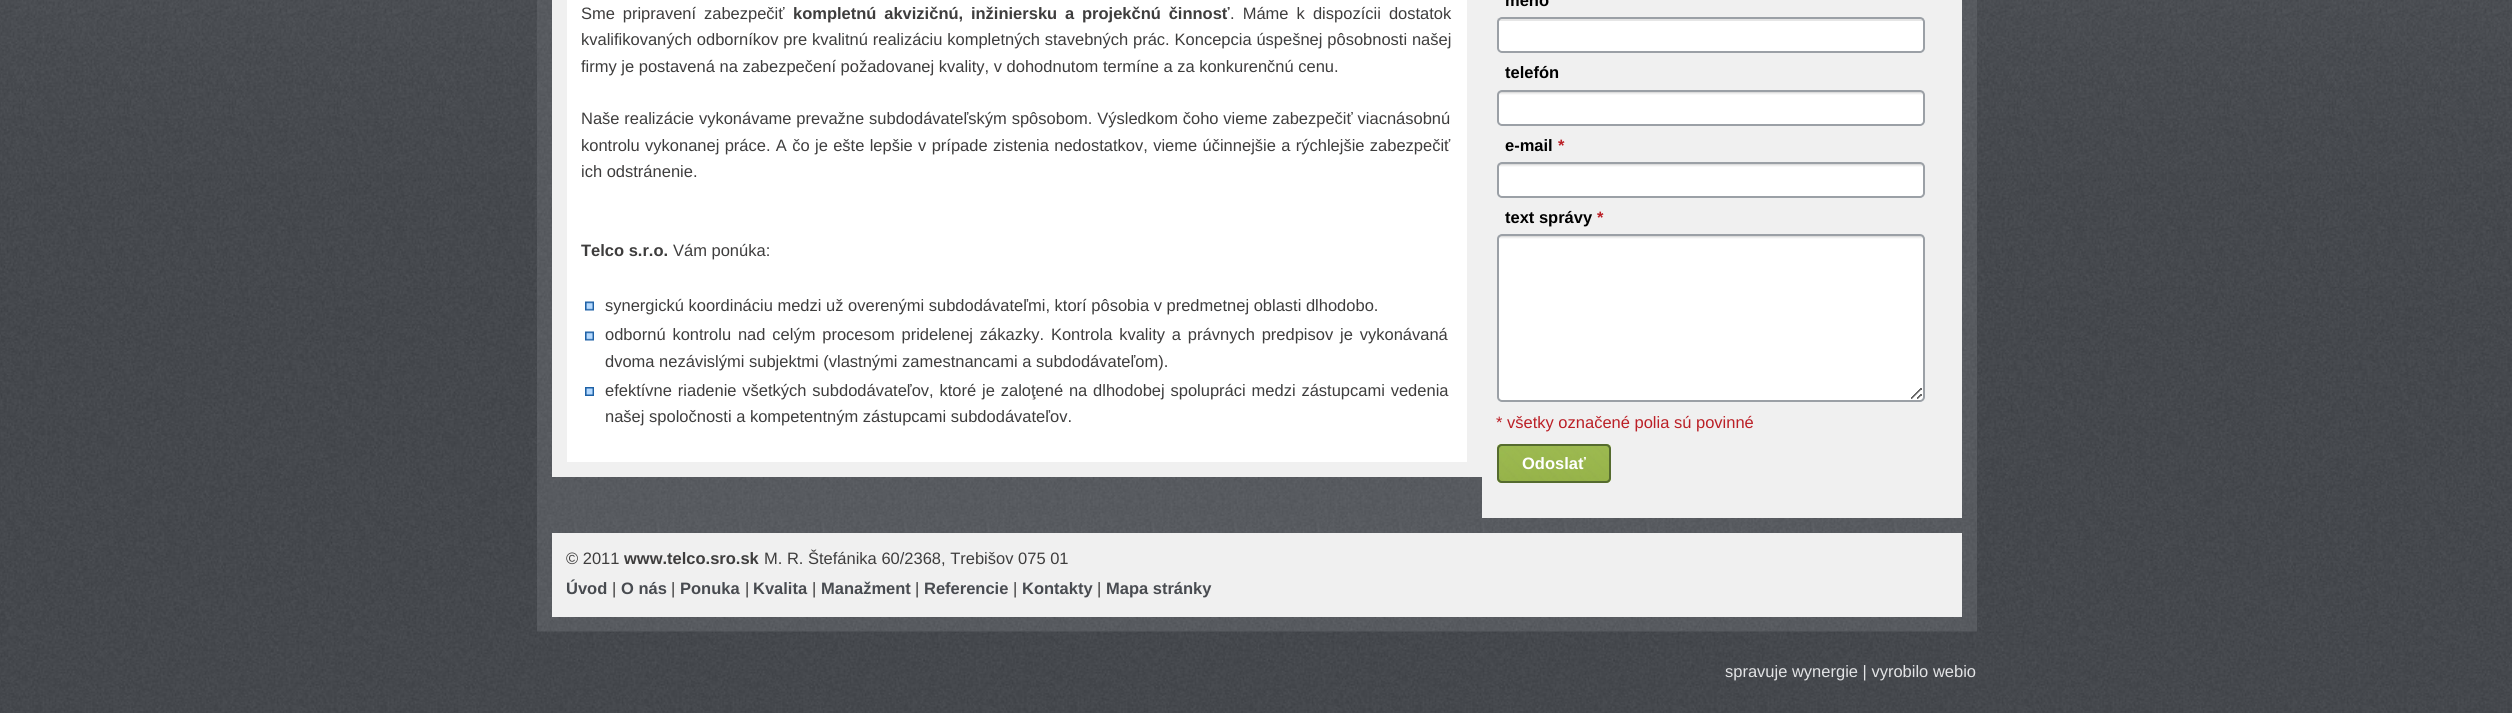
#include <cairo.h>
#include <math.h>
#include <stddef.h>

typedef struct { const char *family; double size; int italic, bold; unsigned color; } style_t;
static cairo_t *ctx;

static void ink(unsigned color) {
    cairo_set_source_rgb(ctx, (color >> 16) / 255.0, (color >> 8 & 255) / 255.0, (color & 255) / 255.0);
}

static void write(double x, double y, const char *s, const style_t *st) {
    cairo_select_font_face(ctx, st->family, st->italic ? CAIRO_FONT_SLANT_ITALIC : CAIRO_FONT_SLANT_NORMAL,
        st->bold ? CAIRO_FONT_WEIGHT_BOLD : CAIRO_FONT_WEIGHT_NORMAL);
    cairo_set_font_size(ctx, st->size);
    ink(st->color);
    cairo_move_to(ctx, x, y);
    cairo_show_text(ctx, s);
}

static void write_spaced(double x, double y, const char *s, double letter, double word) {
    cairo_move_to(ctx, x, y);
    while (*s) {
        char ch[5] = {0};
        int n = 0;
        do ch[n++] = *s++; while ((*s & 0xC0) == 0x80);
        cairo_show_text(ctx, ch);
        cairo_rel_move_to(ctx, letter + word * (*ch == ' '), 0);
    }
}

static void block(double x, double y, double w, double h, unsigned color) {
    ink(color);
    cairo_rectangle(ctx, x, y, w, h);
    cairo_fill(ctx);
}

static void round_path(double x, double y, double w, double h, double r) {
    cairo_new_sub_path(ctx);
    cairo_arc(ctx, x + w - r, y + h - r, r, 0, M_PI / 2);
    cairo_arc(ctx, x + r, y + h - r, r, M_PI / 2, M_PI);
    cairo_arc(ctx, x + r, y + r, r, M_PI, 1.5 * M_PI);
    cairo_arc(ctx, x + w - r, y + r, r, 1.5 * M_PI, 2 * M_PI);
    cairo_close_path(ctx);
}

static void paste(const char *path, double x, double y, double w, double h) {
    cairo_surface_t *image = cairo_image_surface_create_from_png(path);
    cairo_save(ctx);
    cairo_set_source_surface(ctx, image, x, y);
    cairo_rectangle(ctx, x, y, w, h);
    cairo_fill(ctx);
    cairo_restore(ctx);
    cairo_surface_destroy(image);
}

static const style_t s1 = {"Liberation Sans", 16.5, 0, 0, 0x3e3d3d};
static const style_t s2 = {"Liberation Sans", 16.5, 0, 1, 0x3e3d3d};
static const style_t s3 = {"Liberation Sans", 16.5, 0, 1, 0x000000};
static const style_t s4 = {"Liberation Sans", 16.5, 0, 1, 0xbb1f26};
static const style_t s5 = {"Liberation Sans", 16.5, 0, 0, 0xbb1f26};
static const style_t s6 = {"Liberation Sans", 16.5, 0, 1, 0xffffff};
static const style_t s7 = {"Liberation Sans", 16.5, 0, 1, 0x484b50};
static const style_t s8 = {"Liberation Sans", 16.5, 0, 0, 0xe3e4e6};

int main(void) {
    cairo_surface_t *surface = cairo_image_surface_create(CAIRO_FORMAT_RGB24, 2512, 713);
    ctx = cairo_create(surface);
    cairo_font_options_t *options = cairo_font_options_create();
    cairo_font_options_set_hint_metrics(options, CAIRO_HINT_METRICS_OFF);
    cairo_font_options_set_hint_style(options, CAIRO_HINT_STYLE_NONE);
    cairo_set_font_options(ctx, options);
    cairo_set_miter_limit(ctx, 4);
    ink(0xffffff);
    cairo_paint(ctx);
    paste("pic1.png", 0, 286, 2512, 427);
    paste("pic2.png", 0, 0, 2512, 287);
    paste("pic3.png", 537, 0, 1440, 632);
    block(552, 0, 930, 477, 0xf0f0f0);
    block(567, 0, 900, 462, 0xffffff);
    cairo_select_font_face(ctx, "Liberation Sans", CAIRO_FONT_SLANT_NORMAL, CAIRO_FONT_WEIGHT_NORMAL);
    cairo_set_font_size(ctx, 16.5);
    ink(0x3e3d3d);
    write_spaced(581, 19, "Sme pripravení zabezpečiť", 0, 3.25);
    cairo_select_font_face(ctx, "Liberation Sans", CAIRO_FONT_SLANT_NORMAL, CAIRO_FONT_WEIGHT_BOLD);
    write_spaced(793, 19, "kompletnú akvizičnú, inžiniersku a projekčnú činnosť", 0, 3.25);
    cairo_select_font_face(ctx, "Liberation Sans", CAIRO_FONT_SLANT_NORMAL, CAIRO_FONT_WEIGHT_NORMAL);
    write_spaced(1230, 19, ". Máme k dispozícii dostatok", 0, 3.5);
    write_spaced(581, 45, "kvalifikovaných odborníkov pre kvalitnú realizáciu kompletných stavebných prác. Koncepcia úspešnej pôsobnosti našej", 0, 0.25);
    write(581, 72, "firmy je postavená na zabezpečení požadovanej kvality, v dohodnutom termíne a za konkurenčnú cenu.", &s1);
    write_spaced(581, 124, "Naše realizácie vykonávame prevažne subdodávateľským spôsobom. Výsledkom čoho vieme zabezpečiť viacnásobnú", 0, 0.25);
    write_spaced(581, 151, "kontrolu vykonanej práce. A čo je ešte lepšie v prípade zistenia nedostatkov, vieme účinnejšie a rýchlejšie zabezpečiť", 0, 0.75);
    write(581, 177, "ich odstránenie.", &s1);
    write(581, 256, "Telco s.r.o.", &s2);
    write(673, 256, "Vám ponúka:", &s1);
    paste("pic4.png", 585, 301, 9, 10);
    write(605, 311, "synergickú koordináciu medzi už overenými subdodávateľmi, ktorí pôsobia v predmetnej oblasti dlhodobo.", &s1);
    paste("pic4.png", 585, 331, 9, 10);
    write_spaced(605, 340, "odbornú kontrolu nad celým procesom pridelenej zákazky. Kontrola kvality a právnych predpisov je vykonávaná", 0, 2.25);
    write(605, 367, "dvoma nezávislými subjektmi (vlastnými zamestnancami a subdodávateľom).", &s1);
    paste("pic5.png", 585, 387, 9, 9);
    write_spaced(605, 396, "efektívne riadenie všetkých subdodávateľov, ktoré je zaloţené na dlhodobej spolupráci medzi zástupcami vedenia", 0, 1.25);
    write(605, 422, "našej spoločnosti a kompetentným zástupcami subdodávateľov.", &s1);
    block(1482, 0, 480, 518, 0xf0f0f0);
    write(1505, 6, "meno", &s3);
    ink(0xffffff);
    round_path(1497, 17, 428, 36, 5);
    cairo_fill(ctx);
    block(1497, 18, 427, 3, 0xe6e6e6);
    round_path(1498, 18, 426, 34, 4);
    ink(0x9ba0a6);
    cairo_stroke(ctx);
    write(1505, 78, "telefón", &s3);
    ink(0xffffff);
    round_path(1497, 90, 428, 36, 5);
    cairo_fill(ctx);
    paste("pic6.png", 1497, 91, 427, 4);
    round_path(1498, 91, 426, 34, 4);
    ink(0x9ba0a6);
    cairo_stroke(ctx);
    write(1505, 151, "e-mail", &s3);
    write(1558, 151, "*", &s4);
    ink(0xffffff);
    round_path(1497, 162, 428, 36, 5);
    cairo_fill(ctx);
    paste("pic6.png", 1497, 163, 427, 4);
    round_path(1498, 163, 426, 34, 4);
    ink(0x9ba0a6);
    cairo_stroke(ctx);
    write(1505, 223, "text správy", &s3);
    write(1597, 223, "*", &s4);
    ink(0xffffff);
    round_path(1497, 234, 428, 168, 5);
    cairo_fill(ctx);
    paste("pic7.png", 1497, 235, 427, 164);
    round_path(1498, 235, 426, 166, 4);
    ink(0x9ba0a6);
    cairo_stroke(ctx);
    write(1496, 428, "* všetky označené polia sú povinné", &s5);
    paste("pic8.png", 1497, 444, 114, 39);
    round_path(1498, 445, 112, 37, 4);
    ink(0x556b2f);
    cairo_stroke(ctx);
    write(1522, 469, "Odoslať", &s6);
    block(552, 533, 1410, 84, 0xf0f0f0);
    write(566, 564, "© 2011", &s1);
    write(624, 564, "www.telco.sro.sk", &s2);
    write(764, 564, "M. R. Štefánika 60/2368, Trebišov 075 01", &s1);
    write(566, 594, "Úvod", &s7);
    write(612, 594, "|", &s1);
    write(621, 594, "O nás", &s7);
    write(671, 594, "|", &s1);
    write(680, 594, "Ponuka", &s7);
    write(745, 594, "|", &s1);
    write(753, 594, "Kvalita", &s7);
    write(812, 594, "|", &s1);
    write(821, 594, "Manažment", &s7);
    write(915, 594, "|", &s1);
    write(924, 594, "Referencie", &s7);
    write(1013, 594, "|", &s1);
    write(1022, 594, "Kontakty", &s7);
    write(1097, 594, "|", &s1);
    write(1106, 594, "Mapa stránky", &s7);
    write(1725, 677, "spravuje wynergie | vyrobilo webio", &s8);
    cairo_surface_write_to_png(surface, "screenshot.png");
    cairo_font_options_destroy(options);
    cairo_destroy(ctx);
    cairo_surface_destroy(surface);
    return 0;
}
